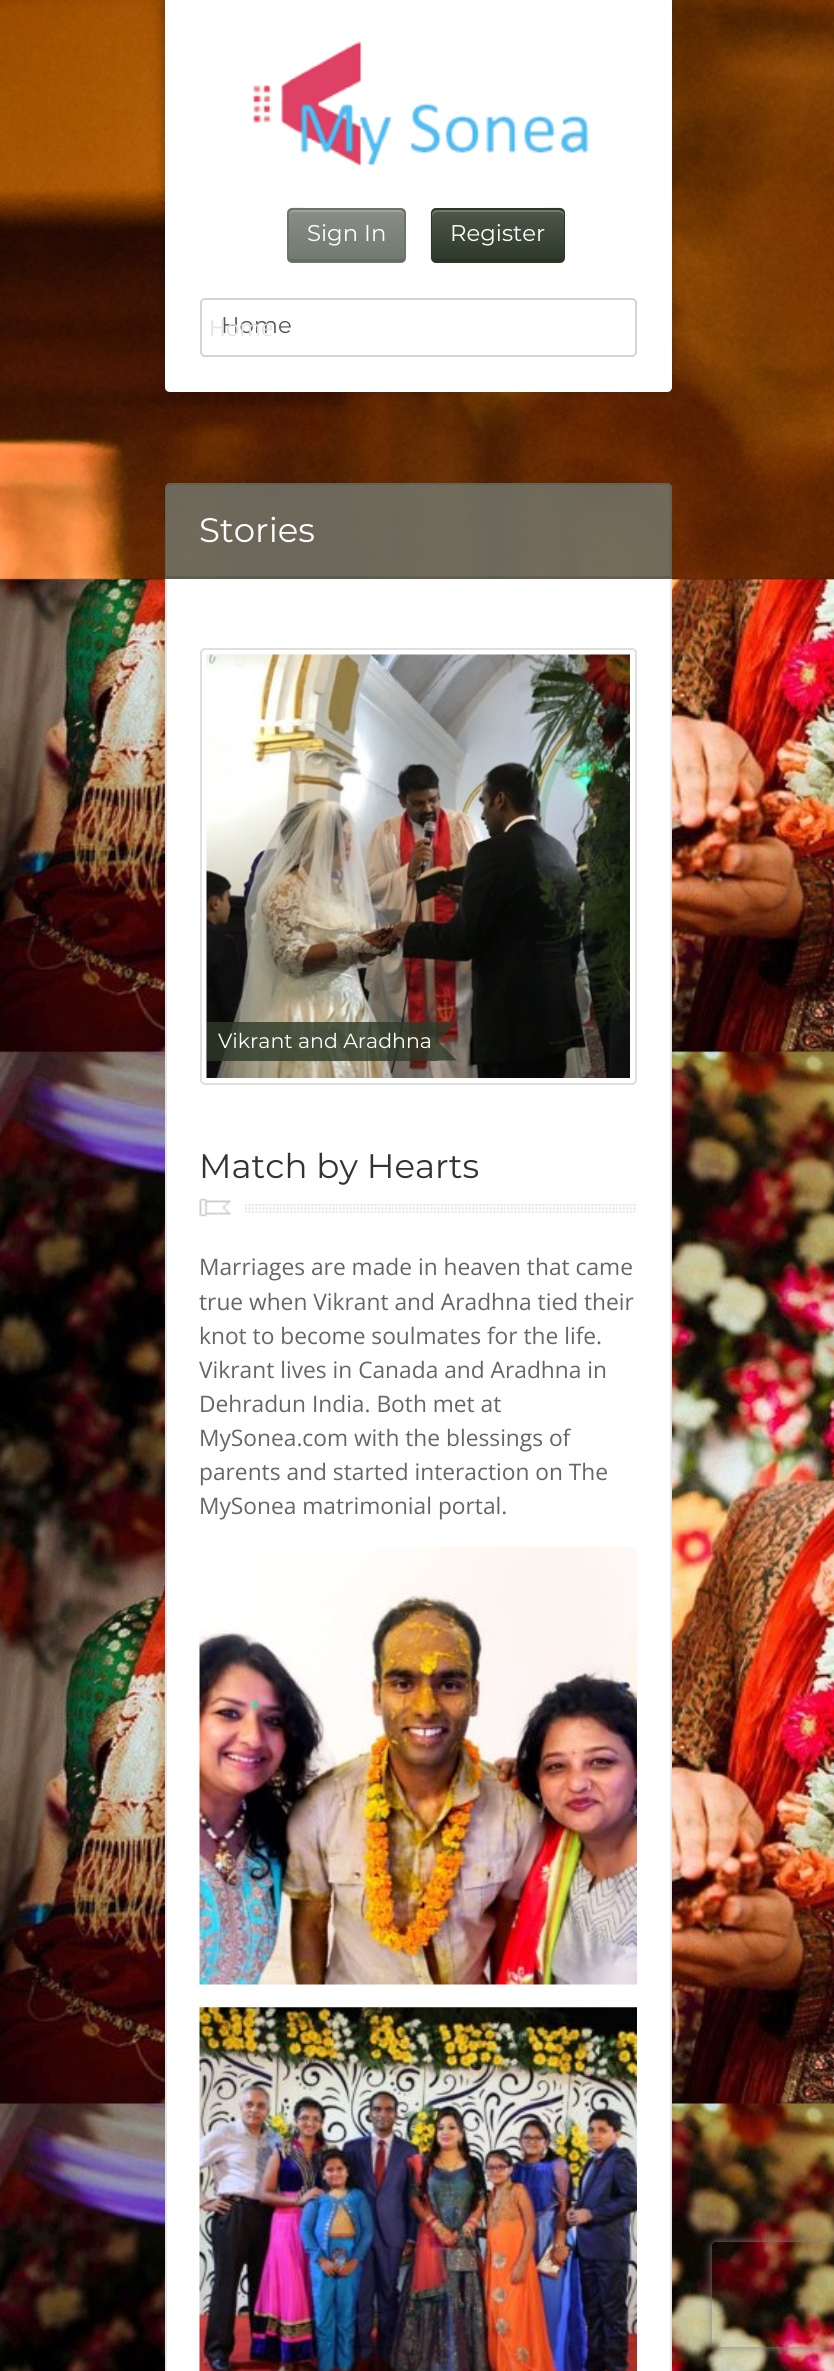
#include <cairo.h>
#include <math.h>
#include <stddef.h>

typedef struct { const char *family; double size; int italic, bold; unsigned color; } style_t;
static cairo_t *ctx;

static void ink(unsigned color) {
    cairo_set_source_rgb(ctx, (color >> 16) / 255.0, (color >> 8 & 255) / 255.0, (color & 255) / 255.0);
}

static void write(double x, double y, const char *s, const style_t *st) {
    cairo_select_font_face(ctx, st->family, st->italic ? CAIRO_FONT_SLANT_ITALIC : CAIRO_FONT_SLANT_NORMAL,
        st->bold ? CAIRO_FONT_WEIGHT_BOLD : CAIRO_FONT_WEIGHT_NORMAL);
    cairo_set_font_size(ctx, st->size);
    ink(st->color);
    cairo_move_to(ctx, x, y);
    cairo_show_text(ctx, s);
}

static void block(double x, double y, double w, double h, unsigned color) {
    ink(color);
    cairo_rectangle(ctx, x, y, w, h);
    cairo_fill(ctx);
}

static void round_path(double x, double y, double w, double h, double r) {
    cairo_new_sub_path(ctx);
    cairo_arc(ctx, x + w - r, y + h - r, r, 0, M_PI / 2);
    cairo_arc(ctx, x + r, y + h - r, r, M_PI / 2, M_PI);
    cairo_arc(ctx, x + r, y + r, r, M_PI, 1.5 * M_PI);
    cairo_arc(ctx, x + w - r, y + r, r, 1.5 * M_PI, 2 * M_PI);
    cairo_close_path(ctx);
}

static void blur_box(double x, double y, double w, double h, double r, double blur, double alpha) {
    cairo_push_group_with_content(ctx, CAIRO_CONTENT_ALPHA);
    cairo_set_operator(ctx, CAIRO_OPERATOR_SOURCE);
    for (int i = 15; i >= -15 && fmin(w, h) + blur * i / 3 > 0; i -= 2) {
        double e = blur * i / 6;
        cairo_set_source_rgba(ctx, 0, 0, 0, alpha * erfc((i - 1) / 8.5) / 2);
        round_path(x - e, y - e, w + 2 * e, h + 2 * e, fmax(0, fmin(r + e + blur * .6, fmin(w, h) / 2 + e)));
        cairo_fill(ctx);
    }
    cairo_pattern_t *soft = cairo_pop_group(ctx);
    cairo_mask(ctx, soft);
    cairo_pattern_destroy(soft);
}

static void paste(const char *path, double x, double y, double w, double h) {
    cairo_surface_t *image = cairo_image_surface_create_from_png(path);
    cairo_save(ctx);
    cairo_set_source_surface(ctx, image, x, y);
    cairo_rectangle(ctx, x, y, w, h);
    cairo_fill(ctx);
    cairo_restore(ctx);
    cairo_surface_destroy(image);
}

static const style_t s1 = {"Montserrat Thin", 22.75, 0, 0, 0xffffff};
static const style_t s2 = {"Montserrat Thin", 22.75, 0, 0, 0x555555};
static const style_t s3 = {"Open Sans", 22.75, 0, 0, 0xe3e3e3};
static const style_t s4 = {"Montserrat Thin", 34, 0, 0, 0xffffff};
static const style_t s5 = {"Montserrat Thin", 20.5, 0, 0, 0xffffff};
static const style_t s6 = {"Montserrat Thin", 34, 0, 0, 0x333333};
static const style_t s7 = {"Open Sans", 22.75, 0, 0, 0x666666};

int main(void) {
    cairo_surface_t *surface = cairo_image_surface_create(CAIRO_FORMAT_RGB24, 834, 2371);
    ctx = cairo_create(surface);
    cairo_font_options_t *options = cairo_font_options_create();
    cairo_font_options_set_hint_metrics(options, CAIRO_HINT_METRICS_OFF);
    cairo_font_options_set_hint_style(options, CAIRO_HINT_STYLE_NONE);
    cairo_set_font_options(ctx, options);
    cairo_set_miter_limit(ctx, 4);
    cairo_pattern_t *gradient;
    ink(0xffffff);
    cairo_paint(ctx);
    paste("pic1.png", 0, 579, 834, 1792);
    paste("pic2.png", 0, 0, 834, 580);
    cairo_set_source_rgba(ctx, 0, 0, 0, 0.1);
    cairo_rectangle(ctx, 0, 578, 834, 2);
    cairo_fill(ctx);
    ink(0x000000);
    blur_box(165, 0, 507, 392, 5, 4.5, 0.2);
    ink(0xffffff);
    cairo_new_path(ctx);
    cairo_move_to(ctx, 165, 0);
    cairo_line_to(ctx, 672, 0);
    cairo_line_to(ctx, 672, 387);
    cairo_curve_to(ctx, 672, 390, 670, 392, 667, 392);
    cairo_line_to(ctx, 170, 392);
    cairo_curve_to(ctx, 167, 392, 165, 390, 165, 387);
    cairo_close_path(ctx);
    cairo_fill(ctx);
    paste("pic3.png", 253, 41, 336, 126);
    ink(0x737a71);
    round_path(287, 208, 119, 55, 5);
    cairo_fill(ctx);
    cairo_set_source_rgba(ctx, 0, 0, 0, 0.05);
    cairo_new_path(ctx);
    cairo_move_to(ctx, 292, 210);
    cairo_line_to(ctx, 290, 211);
    cairo_line_to(ctx, 288, 210);
    cairo_curve_to(ctx, 293, 204, 302, 208, 309, 208);
    cairo_line_to(ctx, 402, 208);
    cairo_line_to(ctx, 405, 210);
    cairo_line_to(ctx, 403, 211);
    cairo_line_to(ctx, 401, 210);
    cairo_close_path(ctx);
    cairo_fill(ctx);
    cairo_new_path(ctx);
    cairo_move_to(ctx, 406, 257);
    cairo_line_to(ctx, 406, 214);
    cairo_curve_to(ctx, 406, 212, 405, 211, 405, 210);
    cairo_line_to(ctx, 403, 211);
    cairo_curve_to(ctx, 405, 213, 404, 257, 404, 258);
    cairo_line_to(ctx, 405, 260);
    cairo_close_path(ctx);
    cairo_fill(ctx);
    ink(0x676e66);
    cairo_new_path(ctx);
    cairo_move_to(ctx, 405, 260);
    cairo_curve_to(ctx, 404, 261, 403, 262, 401, 262);
    cairo_line_to(ctx, 292, 262);
    cairo_curve_to(ctx, 290, 262, 289, 261, 288, 260);
    cairo_line_to(ctx, 289, 258);
    cairo_line_to(ctx, 291, 259);
    cairo_line_to(ctx, 383, 259);
    cairo_line_to(ctx, 401, 259);
    cairo_line_to(ctx, 404, 258);
    cairo_close_path(ctx);
    cairo_fill(ctx);
    cairo_set_source_rgba(ctx, 0, 0, 0, 0.05);
    cairo_new_path(ctx);
    cairo_move_to(ctx, 287, 214);
    cairo_line_to(ctx, 287, 257);
    cairo_curve_to(ctx, 287, 258, 287, 259, 288, 260);
    cairo_line_to(ctx, 289, 258);
    cairo_curve_to(ctx, 289, 257, 288, 213, 290, 211);
    cairo_line_to(ctx, 288, 210);
    cairo_curve_to(ctx, 288, 211, 287, 212, 287, 214);
    cairo_close_path(ctx);
    cairo_fill(ctx);
    gradient = cairo_pattern_create_linear(347, 210, 347, 259);
    cairo_pattern_add_color_stop_rgba(gradient, 0, 1, 1, 1, 0.15);
    cairo_pattern_add_color_stop_rgba(gradient, 1, 1, 1, 1, 0);
    cairo_set_source(ctx, gradient);
    cairo_pattern_destroy(gradient);
    round_path(289, 210, 115, 49, 5);
    cairo_fill(ctx);
    cairo_set_source_rgba(ctx, 1, 1, 1, 0.2);
    cairo_new_path(ctx);
    cairo_move_to(ctx, 294, 212);
    cairo_line_to(ctx, 399, 212);
    cairo_curve_to(ctx, 402, 212, 404, 214, 404, 217);
    cairo_line_to(ctx, 404, 215);
    cairo_curve_to(ctx, 404, 212, 402, 210, 399, 210);
    cairo_line_to(ctx, 294, 210);
    cairo_curve_to(ctx, 291, 210, 289, 212, 289, 215);
    cairo_line_to(ctx, 289, 217);
    cairo_curve_to(ctx, 289, 214, 291, 212, 294, 212);
    cairo_close_path(ctx);
    cairo_fill(ctx);
    write(307, 241, "Sign In", &s1);
    ink(0x2e3a29);
    round_path(431, 208, 134, 55, 5);
    cairo_fill(ctx);
    cairo_set_source_rgba(ctx, 0, 0, 0, 0.05);
    cairo_new_path(ctx);
    cairo_move_to(ctx, 436, 210);
    cairo_line_to(ctx, 433, 211);
    cairo_line_to(ctx, 432, 210);
    cairo_line_to(ctx, 434, 208);
    cairo_line_to(ctx, 540, 208);
    cairo_curve_to(ctx, 548, 208, 559, 204, 564, 210);
    cairo_line_to(ctx, 562, 211);
    cairo_line_to(ctx, 560, 210);
    cairo_close_path(ctx);
    cairo_fill(ctx);
    cairo_new_path(ctx);
    cairo_move_to(ctx, 564, 210);
    cairo_curve_to(ctx, 564, 211, 565, 212, 565, 214);
    cairo_line_to(ctx, 565, 257);
    cairo_curve_to(ctx, 565, 258, 565, 259, 564, 260);
    cairo_line_to(ctx, 563, 258);
    cairo_line_to(ctx, 564, 257);
    cairo_line_to(ctx, 564, 214);
    cairo_line_to(ctx, 562, 211);
    cairo_close_path(ctx);
    cairo_fill(ctx);
    ink(0x293425);
    cairo_new_path(ctx);
    cairo_move_to(ctx, 564, 260);
    cairo_line_to(ctx, 562, 262);
    cairo_line_to(ctx, 435, 262);
    cairo_line_to(ctx, 432, 260);
    cairo_line_to(ctx, 433, 258);
    cairo_line_to(ctx, 436, 259);
    cairo_line_to(ctx, 560, 259);
    cairo_line_to(ctx, 563, 258);
    cairo_close_path(ctx);
    cairo_fill(ctx);
    cairo_set_source_rgba(ctx, 0, 0, 0, 0.05);
    cairo_new_path(ctx);
    cairo_move_to(ctx, 430, 212);
    cairo_line_to(ctx, 432, 210);
    cairo_line_to(ctx, 433, 211);
    cairo_curve_to(ctx, 433, 212, 432, 213, 432, 214);
    cairo_line_to(ctx, 432, 257);
    cairo_line_to(ctx, 433, 258);
    cairo_line_to(ctx, 432, 260);
    cairo_line_to(ctx, 430, 259);
    cairo_close_path(ctx);
    cairo_fill(ctx);
    gradient = cairo_pattern_create_linear(498, 210, 498, 259);
    cairo_pattern_add_color_stop_rgba(gradient, 0, 1, 1, 1, 0.15);
    cairo_pattern_add_color_stop_rgba(gradient, 1, 1, 1, 1, 0);
    cairo_set_source(ctx, gradient);
    cairo_pattern_destroy(gradient);
    round_path(432, 210, 132, 49, 5);
    cairo_fill(ctx);
    cairo_set_source_rgba(ctx, 1, 1, 1, 0.2);
    cairo_new_path(ctx);
    cairo_move_to(ctx, 438, 212);
    cairo_line_to(ctx, 558, 212);
    cairo_curve_to(ctx, 561, 212, 564, 214, 564, 217);
    cairo_line_to(ctx, 564, 215);
    cairo_curve_to(ctx, 564, 212, 562, 210, 559, 210);
    cairo_line_to(ctx, 437, 210);
    cairo_curve_to(ctx, 434, 210, 432, 212, 432, 215);
    cairo_line_to(ctx, 432, 217);
    cairo_curve_to(ctx, 432, 214, 435, 212, 438, 212);
    cairo_close_path(ctx);
    cairo_fill(ctx);
    write(450, 241, "Register", &s1);
    round_path(201, 299, 435, 57, 4);
    ink(0xd4d4d4);
    cairo_stroke(ctx);
    write(221, 333, "Home", &s2);
    write(209, 336, "Home", &s3);
    cairo_set_source_rgba(ctx, 0.451, 0.478, 0.443, 0.8);
    cairo_new_path(ctx);
    cairo_move_to(ctx, 170, 483);
    cairo_line_to(ctx, 667, 483);
    cairo_curve_to(ctx, 670, 483, 672, 485, 672, 488);
    cairo_line_to(ctx, 672, 579);
    cairo_line_to(ctx, 165, 579);
    cairo_line_to(ctx, 165, 488);
    cairo_curve_to(ctx, 165, 485, 167, 483, 170, 483);
    cairo_close_path(ctx);
    cairo_fill(ctx);
    cairo_set_source_rgba(ctx, 0, 0, 0, 0.08);
    cairo_new_path(ctx);
    cairo_move_to(ctx, 170, 483);
    cairo_curve_to(ctx, 168, 483, 167, 484, 166, 484);
    cairo_line_to(ctx, 167, 486);
    cairo_line_to(ctx, 170, 485);
    cairo_line_to(ctx, 667, 485);
    cairo_line_to(ctx, 669, 486);
    cairo_line_to(ctx, 671, 484);
    cairo_curve_to(ctx, 670, 484, 668, 483, 667, 483);
    cairo_close_path(ctx);
    cairo_fill(ctx);
    cairo_new_path(ctx);
    cairo_move_to(ctx, 672, 579);
    cairo_line_to(ctx, 672, 487);
    cairo_line_to(ctx, 671, 484);
    cairo_line_to(ctx, 669, 486);
    cairo_curve_to(ctx, 671, 488, 669, 565, 670, 575);
    cairo_close_path(ctx);
    cairo_fill(ctx);
    cairo_set_source_rgba(ctx, 0, 0, 0, 0.12);
    cairo_new_path(ctx);
    cairo_move_to(ctx, 672, 579);
    cairo_line_to(ctx, 165, 579);
    cairo_line_to(ctx, 166, 576);
    cairo_line_to(ctx, 670, 576);
    cairo_line_to(ctx, 670, 575);
    cairo_close_path(ctx);
    cairo_fill(ctx);
    cairo_set_source_rgba(ctx, 0, 0, 0, 0.08);
    cairo_new_path(ctx);
    cairo_move_to(ctx, 164, 486);
    cairo_line_to(ctx, 166, 484);
    cairo_line_to(ctx, 167, 486);
    cairo_line_to(ctx, 166, 488);
    cairo_line_to(ctx, 166, 576);
    cairo_line_to(ctx, 165, 579);
    cairo_close_path(ctx);
    cairo_fill(ctx);
    write(199, 542, "Stories", &s4);
    block(167, 579, 503, 1792, 0xffffff);
    block(670, 579, 2, 1792, 0xe6e6e6);
    block(165, 579, 2, 1792, 0xe6e6e6);
    round_path(201, 649, 435, 435, 4);
    ink(0xdfdfdf);
    cairo_stroke(ctx);
    paste("pic4.png", 206, 654, 424, 424);
    cairo_set_source_rgba(ctx, 0.18, 0.227, 0.161, 0.8);
    cairo_rectangle(ctx, 207, 1022, 231, 39);
    cairo_fill(ctx);
    cairo_save(ctx);
    cairo_rectangle(ctx, 438, 1022, 21, 39);
    cairo_clip(ctx);
    cairo_new_path(ctx);
    cairo_move_to(ctx, 418, 1022);
    cairo_line_to(ctx, 457, 1022);
    cairo_line_to(ctx, 437.5, 1041);
    cairo_close_path(ctx);
    cairo_move_to(ctx, 457, 1060.5);
    cairo_line_to(ctx, 418, 1060.5);
    cairo_line_to(ctx, 437.5, 1041);
    cairo_close_path(ctx);
    cairo_fill(ctx);
    cairo_restore(ctx);
    write(218, 1048, "Vikrant and Aradhna", &s5);
    paste("pic5.png", 199, 1204, 438, 9);
    paste("pic6.png", 199, 1198, 46, 19);
    write(199, 1178, "Match by Hearts", &s6);
    write(199, 1275, "Marriages are made in heaven that came", &s7);
    write(199, 1310, "true when Vikrant and Aradhna tied their", &s7);
    write(199, 1344, "knot to become soulmates for the life.", &s7);
    write(199, 1378, "Vikrant lives in Canada and Aradhna in", &s7);
    write(199, 1412, "Dehradun India. Both met at", &s7);
    write(199, 1446, "MySonea.com with the blessings of", &s7);
    write(199, 1480, "parents and started interaction on The", &s7);
    write(199, 1514, "MySonea matrimonial portal.", &s7);
    paste("pic7.png", 199, 1547, 438, 438);
    paste("pic8.png", 199, 2007, 438, 364);
    cairo_save(ctx);
    cairo_set_fill_rule(ctx, CAIRO_FILL_RULE_EVEN_ODD);
    cairo_new_path(ctx);
    cairo_move_to(ctx, 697, 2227);
    cairo_line_to(ctx, 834, 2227);
    cairo_line_to(ctx, 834, 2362);
    cairo_line_to(ctx, 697, 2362);
    cairo_close_path(ctx);
    cairo_move_to(ctx, 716, 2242);
    cairo_line_to(ctx, 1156, 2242);
    cairo_curve_to(ctx, 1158, 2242, 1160, 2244, 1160, 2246);
    cairo_line_to(ctx, 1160, 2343);
    cairo_curve_to(ctx, 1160, 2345, 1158, 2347, 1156, 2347);
    cairo_line_to(ctx, 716, 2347);
    cairo_curve_to(ctx, 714, 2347, 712, 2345, 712, 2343);
    cairo_line_to(ctx, 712, 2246);
    cairo_curve_to(ctx, 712, 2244, 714, 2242, 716, 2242);
    cairo_close_path(ctx);
    cairo_clip(ctx);
    ink(0x808080);
    blur_box(712, 2242, 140, 105, 4, 4.5, 1);
    cairo_restore(ctx);
    cairo_surface_write_to_png(surface, "screenshot.png");
    cairo_font_options_destroy(options);
    cairo_destroy(ctx);
    cairo_surface_destroy(surface);
    return 0;
}
